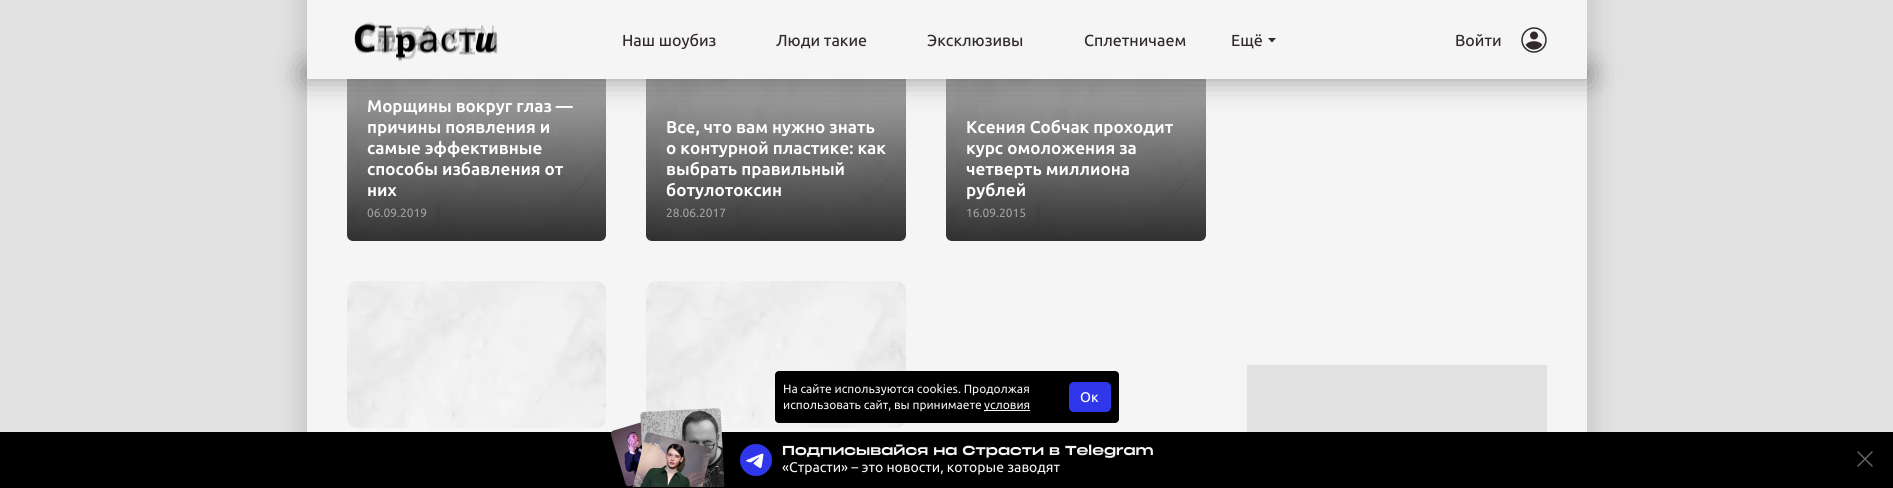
#include <cairo.h>
#include <math.h>
#include <stddef.h>

typedef struct { const char *family; double size; int italic, bold; unsigned color; } style_t;
static cairo_t *ctx;

static void ink(unsigned color) {
    cairo_set_source_rgb(ctx, (color >> 16) / 255.0, (color >> 8 & 255) / 255.0, (color & 255) / 255.0);
}

static void write(double x, double y, const char *s, const style_t *st) {
    cairo_select_font_face(ctx, st->family, st->italic ? CAIRO_FONT_SLANT_ITALIC : CAIRO_FONT_SLANT_NORMAL,
        st->bold ? CAIRO_FONT_WEIGHT_BOLD : CAIRO_FONT_WEIGHT_NORMAL);
    cairo_set_font_size(ctx, st->size);
    ink(st->color);
    cairo_move_to(ctx, x, y);
    cairo_show_text(ctx, s);
}

static void block(double x, double y, double w, double h, unsigned color) {
    ink(color);
    cairo_rectangle(ctx, x, y, w, h);
    cairo_fill(ctx);
}

static void round_path(double x, double y, double w, double h, double r) {
    cairo_new_sub_path(ctx);
    cairo_arc(ctx, x + w - r, y + h - r, r, 0, M_PI / 2);
    cairo_arc(ctx, x + r, y + h - r, r, M_PI / 2, M_PI);
    cairo_arc(ctx, x + r, y + r, r, M_PI, 1.5 * M_PI);
    cairo_arc(ctx, x + w - r, y + r, r, 1.5 * M_PI, 2 * M_PI);
    cairo_close_path(ctx);
}

static void blur_box(double x, double y, double w, double h, double r, double blur, double alpha) {
    cairo_push_group_with_content(ctx, CAIRO_CONTENT_ALPHA);
    cairo_set_operator(ctx, CAIRO_OPERATOR_SOURCE);
    for (int i = 15; i >= -15 && fmin(w, h) + blur * i / 3 > 0; i -= 2) {
        double e = blur * i / 6;
        cairo_set_source_rgba(ctx, 0, 0, 0, alpha * erfc((i - 1) / 8.5) / 2);
        round_path(x - e, y - e, w + 2 * e, h + 2 * e, fmax(0, fmin(r + e + blur * .6, fmin(w, h) / 2 + e)));
        cairo_fill(ctx);
    }
    cairo_pattern_t *soft = cairo_pop_group(ctx);
    cairo_mask(ctx, soft);
    cairo_pattern_destroy(soft);
}

static void paste(const char *path, double x, double y, double w, double h) {
    cairo_surface_t *image = cairo_image_surface_create_from_png(path);
    cairo_save(ctx);
    cairo_set_source_surface(ctx, image, x, y);
    cairo_rectangle(ctx, x, y, w, h);
    cairo_fill(ctx);
    cairo_restore(ctx);
    cairo_surface_destroy(image);
}

static const style_t s1 = {"Ubuntu Medium", 16, 0, 0, 0x32292f};
static const style_t s2 = {"Ubuntu", 17, 0, 1, 0xffffff};
static const style_t s3 = {"Ubuntu", 12, 0, 0, 0xa2a2a2};
static const style_t s4 = {"Ubuntu", 12, 0, 0, 0xf5f5f5};
static const style_t s5 = {"Ubuntu Medium", 14, 0, 0, 0xffffff};
static const style_t s6 = {"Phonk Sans", 13, 0, 1, 0xf5f5f5};
static const style_t s7 = {"Ubuntu", 14, 0, 0, 0xf5f5f5};

int main(void) {
    cairo_surface_t *surface = cairo_image_surface_create(CAIRO_FORMAT_RGB24, 1893, 488);
    ctx = cairo_create(surface);
    cairo_font_options_t *options = cairo_font_options_create();
    cairo_font_options_set_hint_metrics(options, CAIRO_HINT_METRICS_OFF);
    cairo_font_options_set_hint_style(options, CAIRO_HINT_STYLE_NONE);
    cairo_set_font_options(ctx, options);
    cairo_set_miter_limit(ctx, 4);
    cairo_pattern_t *gradient;
    ink(0xe2e2e2);
    cairo_paint(ctx);
    ink(0x000000);
    blur_box(297, -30, 1300, 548, 0, 10, 0.1);
    block(307, 79, 1280, 353, 0xf5f5f5);
    paste("pic3.png", 347, 79, 259, 162);
    gradient = cairo_pattern_create_linear(477, -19, 477, 241);
    cairo_pattern_add_color_stop_rgba(gradient, 0, 0, 0, 0, 0);
    cairo_pattern_add_color_stop_rgba(gradient, 1, 0, 0, 0, 0.8);
    cairo_set_source(ctx, gradient);
    cairo_pattern_destroy(gradient);
    round_path(347, -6, 259, 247, 6);
    cairo_fill(ctx);
    paste("pic4.png", 646, 79, 260, 162);
    gradient = cairo_pattern_create_linear(776, -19, 776, 241);
    cairo_pattern_add_color_stop_rgba(gradient, 0, 0, 0, 0, 0);
    cairo_pattern_add_color_stop_rgba(gradient, 1, 0, 0, 0, 0.8);
    cairo_set_source(ctx, gradient);
    cairo_pattern_destroy(gradient);
    round_path(646, -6, 260, 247, 6);
    cairo_fill(ctx);
    paste("pic5.png", 946, 79, 260, 162);
    gradient = cairo_pattern_create_linear(1076, -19, 1076, 241);
    cairo_pattern_add_color_stop_rgba(gradient, 0, 0, 0, 0, 0);
    cairo_pattern_add_color_stop_rgba(gradient, 1, 0, 0, 0, 0.8);
    cairo_set_source(ctx, gradient);
    cairo_pattern_destroy(gradient);
    round_path(946, -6, 260, 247, 6);
    cairo_fill(ctx);
    ink(0x000000);
    blur_box(307, 69, 1280, 10, 0, 15, 0.4);
    block(307, 0, 1280, 79, 0xf5f5f5);
    paste("pic1.png", 354, 22, 144, 40);
    write(622, 46, "Наш шоубиз", &s1);
    write(776, 46, "Люди такие", &s1);
    write(927, 46, "Эксклюзивы", &s1);
    write(1084, 46, "Сплетничаем", &s1);
    write(1231, 46, "Ещё", &s1);
    cairo_new_path(ctx);
    cairo_move_to(ctx, 1268, 38);
    cairo_line_to(ctx, 1276, 38);
    cairo_line_to(ctx, 1272, 42.5);
    cairo_close_path(ctx);
    cairo_fill(ctx);
    write(1455, 46, "Войти", &s1);
    paste("pic2.png", 1521, 27, 26, 26);
    write(367, 112, "Морщины вокруг глаз —", &s2);
    write(367, 133, "причины появления и", &s2);
    write(367, 154, "самые эффективные", &s2);
    write(367, 175, "способы избавления от", &s2);
    write(367, 196, "них", &s2);
    write(367, 217, "06.09.2019", &s3);
    write(666, 133, "Все, что вам нужно знать", &s2);
    write(666, 154, "о контурной пластике: как", &s2);
    write(666, 175, "выбрать правильный", &s2);
    write(666, 196, "ботулотоксин", &s2);
    write(666, 217, "28.06.2017", &s3);
    write(966, 133, "Ксения Собчак проходит", &s2);
    write(966, 154, "курс омоложения за", &s2);
    write(966, 175, "четверть миллиона", &s2);
    write(966, 196, "рублей", &s2);
    write(966, 217, "16.09.2015", &s3);
    paste("pic6.png", 347, 281, 259, 147);
    paste("pic7.png", 646, 281, 260, 147);
    block(1247, 365, 300, 67, 0xe2e1e1);
    ink(0x000000);
    round_path(775, 371, 344, 52, 4);
    cairo_fill(ctx);
    write(783, 393, "На сайте используются cookies. Продолжая", &s4);
    write(783, 409, "использовать сайт, вы принимаете", &s4);
    block(984, 410, 46, 1, 0xf5f5f5);
    write(984, 409, "условия", &s4);
    ink(0x3037eb);
    round_path(1069, 382, 42, 30, 5);
    cairo_fill(ctx);
    write(1080, 402, "Ок", &s5);
    block(0, 432, 1893, 56, 0x000000);
    paste("pic8.png", 610, 408, 115, 79);
    paste("pic9.png", 740, 444, 32, 32);
    write(782, 455, "Подписывайся на Страсти в Telegram", &s6);
    write(782, 472, "«Страсти» – это новости, которые заводят", &s7);
    cairo_new_path(ctx);
    cairo_move_to(ctx, 1858, 452);
    cairo_line_to(ctx, 1872, 466);
    cairo_move_to(ctx, 1872, 452);
    cairo_line_to(ctx, 1858, 466);
    ink(0x636363);
    cairo_set_line_width(ctx, 1.5);
    cairo_set_line_cap(ctx, CAIRO_LINE_CAP_ROUND);
    cairo_set_line_join(ctx, CAIRO_LINE_JOIN_ROUND);
    cairo_stroke(ctx);
    cairo_surface_write_to_png(surface, "screenshot.png");
    cairo_font_options_destroy(options);
    cairo_destroy(ctx);
    cairo_surface_destroy(surface);
    return 0;
}
